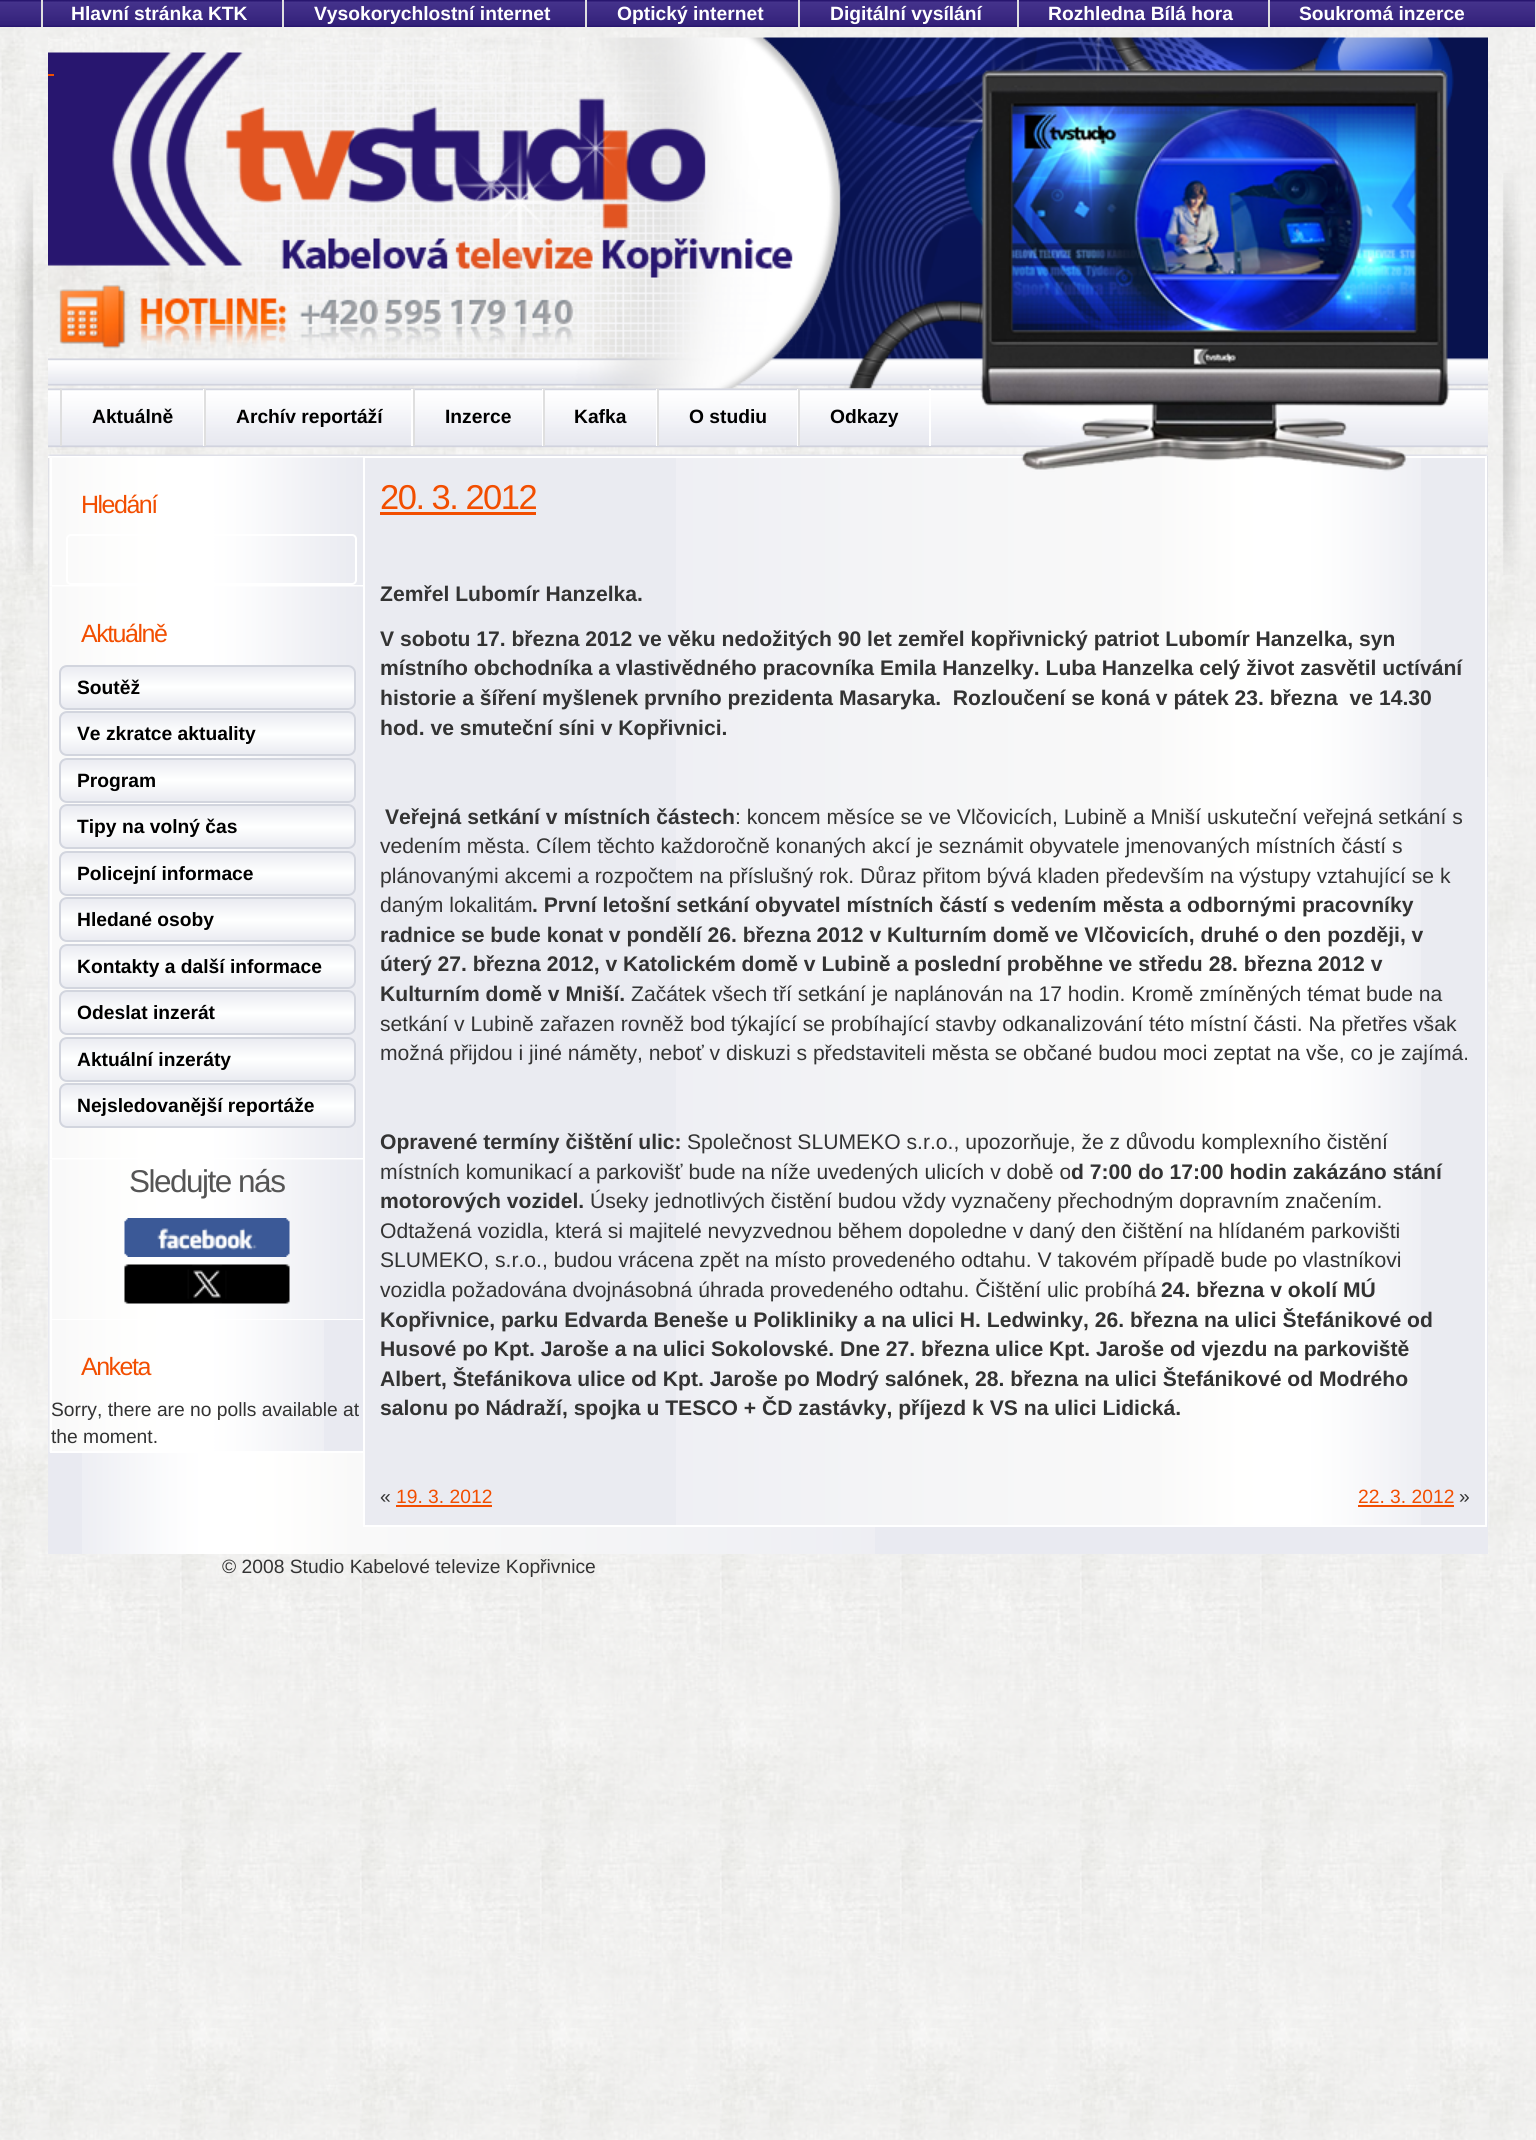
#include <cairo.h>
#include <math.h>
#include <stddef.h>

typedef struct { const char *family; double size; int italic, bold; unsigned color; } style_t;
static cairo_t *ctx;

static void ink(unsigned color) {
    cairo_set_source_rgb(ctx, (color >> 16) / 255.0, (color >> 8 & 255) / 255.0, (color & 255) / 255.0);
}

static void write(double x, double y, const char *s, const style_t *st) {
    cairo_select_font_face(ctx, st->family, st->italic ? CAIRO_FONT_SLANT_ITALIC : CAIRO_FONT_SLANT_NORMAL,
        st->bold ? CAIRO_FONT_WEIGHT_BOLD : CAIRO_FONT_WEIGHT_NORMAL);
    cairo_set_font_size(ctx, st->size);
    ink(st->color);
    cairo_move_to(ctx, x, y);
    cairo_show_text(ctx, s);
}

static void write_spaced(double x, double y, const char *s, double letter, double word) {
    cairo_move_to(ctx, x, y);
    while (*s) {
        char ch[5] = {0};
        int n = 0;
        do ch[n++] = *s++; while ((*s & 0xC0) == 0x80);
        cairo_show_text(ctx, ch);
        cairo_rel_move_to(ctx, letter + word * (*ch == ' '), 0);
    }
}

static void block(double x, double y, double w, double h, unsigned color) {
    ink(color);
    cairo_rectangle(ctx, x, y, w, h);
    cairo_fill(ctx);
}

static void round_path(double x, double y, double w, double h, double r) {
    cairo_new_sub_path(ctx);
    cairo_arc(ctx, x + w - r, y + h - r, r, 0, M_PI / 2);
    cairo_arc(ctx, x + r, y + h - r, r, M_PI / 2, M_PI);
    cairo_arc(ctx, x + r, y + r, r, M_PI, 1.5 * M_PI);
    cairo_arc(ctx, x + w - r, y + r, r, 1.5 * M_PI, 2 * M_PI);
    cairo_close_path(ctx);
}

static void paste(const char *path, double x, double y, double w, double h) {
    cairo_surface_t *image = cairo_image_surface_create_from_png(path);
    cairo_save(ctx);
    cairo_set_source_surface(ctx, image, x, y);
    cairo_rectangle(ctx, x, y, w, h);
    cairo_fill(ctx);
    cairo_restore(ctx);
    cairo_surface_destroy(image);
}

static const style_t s1 = {"Liberation Sans", 19.25, 0, 1, 0xffffff};
static const style_t s2 = {"Liberation Sans", 19.25, 0, 1, 0x000000};
static const style_t s3 = {"Liberation Sans", 19.25, 0, 0, 0x333333};
static const style_t s4 = {"Liberation Sans", 21.12, 0, 1, 0x333333};
static const style_t s5 = {"Liberation Sans", 21.12, 0, 0, 0x333333};
static const style_t s6 = {"Liberation Sans", 19.25, 0, 0, 0xf24e00};

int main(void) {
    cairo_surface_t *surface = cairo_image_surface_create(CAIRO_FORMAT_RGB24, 1536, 2140);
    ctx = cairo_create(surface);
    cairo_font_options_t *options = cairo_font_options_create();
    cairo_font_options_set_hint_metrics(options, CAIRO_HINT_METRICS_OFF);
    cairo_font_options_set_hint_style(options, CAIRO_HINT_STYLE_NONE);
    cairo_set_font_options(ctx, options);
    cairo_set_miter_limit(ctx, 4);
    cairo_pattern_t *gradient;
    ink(0xffffff);
    cairo_paint(ctx);
    paste("pic1.png", 0, 27, 1536, 2113);
    paste("pic2.png", 0, 0, 1535, 27);
    block(1535, 0, 1, 27, 0xdfdfdf);
    block(41, 0, 2, 27, 0xdfdfdf);
    write(71, 20, "Hlavní stránka KTK", &s1);
    block(282, 0, 2, 27, 0xdfdfdf);
    write(314, 20, "Vysokorychlostní internet", &s1);
    block(585, 0, 2, 27, 0xdfdfdf);
    write(617, 20, "Optický internet", &s1);
    block(798, 0, 2, 27, 0xdfdfdf);
    write(830, 20, "Digitální vysílání", &s1);
    block(1017, 0, 2, 27, 0xdfdfdf);
    write(1048, 20, "Rozhledna Bílá hora", &s1);
    block(1268, 0, 2, 27, 0xdfdfdf);
    write(1299, 20, "Soukromá inzerce", &s1);
    paste("pic3.png", 15, 173, 1506, 402);
    paste("pic4.png", 48, 37, 1440, 352);
    paste("pic5.png", 48, 52, 745, 226);
    paste("pic7.png", 48, 388, 1440, 68);
    paste("pic9.png", 48, 456, 1440, 321);
    block(48, 777, 1440, 777, 0xe9eaf1);
    paste("pic8.png", 82, 1453, 793, 101);
    block(365, 458, 1120, 1067, 0xeaebf1);
    paste("pic16.png", 676, 458, 745, 1067);
    cairo_rectangle(ctx, 364, 457, 1122, 1069);
    ink(0xffffff);
    cairo_stroke(ctx);
    paste("pic6.png", 980, 68, 470, 404);
    block(48, 74, 6, 2, 0xf24e00);
    block(203, 389, 1, 57, 0xffffff);
    block(60, 389, 2, 57, 0xdfdfdf);
    write(92, 423, "Aktuálně", &s2);
    block(411, 389, 2, 57, 0xffffff);
    block(204, 389, 2, 57, 0xdfdfdf);
    write(236, 423, "Archív reportáží", &s2);
    block(542, 389, 1, 57, 0xffffff);
    block(413, 389, 2, 57, 0xdfdfdf);
    write(445, 423, "Inzerce", &s2);
    block(656, 389, 1, 57, 0xffffff);
    block(543, 389, 2, 57, 0xdfdfdf);
    write(574, 423, "Kafka", &s2);
    block(797, 389, 1, 57, 0xffffff);
    block(657, 389, 2, 57, 0xdfdfdf);
    write(689, 423, "O studiu", &s2);
    block(929, 389, 2, 57, 0xffffff);
    block(798, 389, 2, 57, 0xdfdfdf);
    write(830, 423, "Odkazy", &s2);
    block(48, 456, 3, 2, 0xffffff);
    paste("pic10.png", 49, 457, 314, 130);
    block(50, 585, 313, 2, 0xffffff);
    block(50, 458, 2, 129, 0xffffff);
    cairo_select_font_face(ctx, "Liberation Sans", CAIRO_FONT_SLANT_NORMAL, CAIRO_FONT_WEIGHT_NORMAL);
    cairo_set_font_size(ctx, 25);
    ink(0xf24e00);
    write_spaced(81, 513, "Hledání", -1.5, 0);
    round_path(67, 535, 289, 49, 4);
    ink(0xffffff);
    cairo_stroke(ctx);
    paste("pic11.png", 49, 586, 314, 574);
    block(50, 1158, 313, 2, 0xffffff);
    block(50, 587, 2, 573, 0xffffff);
    ink(0xf24e00);
    write_spaced(81, 642, "Aktuálně", -1.5, 0);
    cairo_save(ctx);
    round_path(59, 665, 297, 45, 8);
    cairo_clip(ctx);
    gradient = cairo_pattern_create_linear(207, 666, 207, 708);
    cairo_pattern_add_color_stop_rgba(gradient, 0, 0.914, 0.922, 0.945, 1);
    cairo_pattern_add_color_stop_rgba(gradient, 0.5, 1, 1, 1, 1);
    cairo_pattern_add_color_stop_rgba(gradient, 1, 0.914, 0.922, 0.945, 1);
    cairo_set_source(ctx, gradient);
    cairo_pattern_destroy(gradient);
    cairo_rectangle(ctx, 59, 666, 297, 42);
    cairo_fill(ctx);
    cairo_restore(ctx);
    round_path(60, 666, 295, 43, 7);
    ink(0xd2d5de);
    cairo_stroke(ctx);
    write(77, 694, "Soutěž", &s2);
    cairo_save(ctx);
    round_path(59, 711, 297, 45, 8);
    cairo_clip(ctx);
    gradient = cairo_pattern_create_linear(207, 713, 207, 755);
    cairo_pattern_add_color_stop_rgba(gradient, 0, 0.914, 0.922, 0.945, 1);
    cairo_pattern_add_color_stop_rgba(gradient, 0.5, 1, 1, 1, 1);
    cairo_pattern_add_color_stop_rgba(gradient, 1, 0.914, 0.922, 0.945, 1);
    cairo_set_source(ctx, gradient);
    cairo_pattern_destroy(gradient);
    cairo_rectangle(ctx, 59, 713, 297, 42);
    cairo_fill(ctx);
    cairo_restore(ctx);
    round_path(60, 712, 295, 43, 7);
    ink(0xd2d5de);
    cairo_stroke(ctx);
    write(77, 740, "Ve zkratce aktuality", &s2);
    cairo_save(ctx);
    round_path(59, 758, 297, 45, 8);
    cairo_clip(ctx);
    gradient = cairo_pattern_create_linear(207, 759, 207, 801);
    cairo_pattern_add_color_stop_rgba(gradient, 0, 0.914, 0.922, 0.945, 1);
    cairo_pattern_add_color_stop_rgba(gradient, 0.5, 1, 1, 1, 1);
    cairo_pattern_add_color_stop_rgba(gradient, 1, 0.914, 0.922, 0.945, 1);
    cairo_set_source(ctx, gradient);
    cairo_pattern_destroy(gradient);
    cairo_rectangle(ctx, 59, 759, 297, 42);
    cairo_fill(ctx);
    cairo_restore(ctx);
    round_path(60, 759, 295, 43, 7);
    ink(0xd2d5de);
    cairo_stroke(ctx);
    write(77, 787, "Program", &s2);
    cairo_save(ctx);
    round_path(59, 804, 297, 45, 8);
    cairo_clip(ctx);
    gradient = cairo_pattern_create_linear(207, 806, 207, 848);
    cairo_pattern_add_color_stop_rgba(gradient, 0, 0.914, 0.922, 0.945, 1);
    cairo_pattern_add_color_stop_rgba(gradient, 0.5, 1, 1, 1, 1);
    cairo_pattern_add_color_stop_rgba(gradient, 1, 0.914, 0.922, 0.945, 1);
    cairo_set_source(ctx, gradient);
    cairo_pattern_destroy(gradient);
    cairo_rectangle(ctx, 59, 806, 297, 42);
    cairo_fill(ctx);
    cairo_restore(ctx);
    round_path(60, 805, 295, 43, 7);
    ink(0xd2d5de);
    cairo_stroke(ctx);
    write(77, 833, "Tipy na volný čas", &s2);
    cairo_save(ctx);
    round_path(59, 851, 297, 45, 8);
    cairo_clip(ctx);
    gradient = cairo_pattern_create_linear(207, 852, 207, 894);
    cairo_pattern_add_color_stop_rgba(gradient, 0, 0.914, 0.922, 0.945, 1);
    cairo_pattern_add_color_stop_rgba(gradient, 0.5, 1, 1, 1, 1);
    cairo_pattern_add_color_stop_rgba(gradient, 1, 0.914, 0.922, 0.945, 1);
    cairo_set_source(ctx, gradient);
    cairo_pattern_destroy(gradient);
    cairo_rectangle(ctx, 59, 852, 297, 42);
    cairo_fill(ctx);
    cairo_restore(ctx);
    round_path(60, 852, 295, 43, 7);
    ink(0xd2d5de);
    cairo_stroke(ctx);
    write(77, 880, "Policejní informace", &s2);
    cairo_save(ctx);
    round_path(59, 897, 297, 45, 8);
    cairo_clip(ctx);
    gradient = cairo_pattern_create_linear(207, 899, 207, 941);
    cairo_pattern_add_color_stop_rgba(gradient, 0, 0.914, 0.922, 0.945, 1);
    cairo_pattern_add_color_stop_rgba(gradient, 0.5, 1, 1, 1, 1);
    cairo_pattern_add_color_stop_rgba(gradient, 1, 0.914, 0.922, 0.945, 1);
    cairo_set_source(ctx, gradient);
    cairo_pattern_destroy(gradient);
    cairo_rectangle(ctx, 59, 899, 297, 42);
    cairo_fill(ctx);
    cairo_restore(ctx);
    round_path(60, 898, 295, 43, 7);
    ink(0xd2d5de);
    cairo_stroke(ctx);
    write(77, 926, "Hledané osoby", &s2);
    cairo_save(ctx);
    round_path(59, 944, 297, 45, 8);
    cairo_clip(ctx);
    gradient = cairo_pattern_create_linear(207, 945, 207, 987);
    cairo_pattern_add_color_stop_rgba(gradient, 0, 0.914, 0.922, 0.945, 1);
    cairo_pattern_add_color_stop_rgba(gradient, 0.5, 1, 1, 1, 1);
    cairo_pattern_add_color_stop_rgba(gradient, 1, 0.914, 0.922, 0.945, 1);
    cairo_set_source(ctx, gradient);
    cairo_pattern_destroy(gradient);
    cairo_rectangle(ctx, 59, 945, 297, 42);
    cairo_fill(ctx);
    cairo_restore(ctx);
    round_path(60, 945, 295, 43, 7);
    ink(0xd2d5de);
    cairo_stroke(ctx);
    write(77, 973, "Kontakty a další informace", &s2);
    cairo_save(ctx);
    round_path(59, 990, 297, 45, 8);
    cairo_clip(ctx);
    gradient = cairo_pattern_create_linear(207, 992, 207, 1034);
    cairo_pattern_add_color_stop_rgba(gradient, 0, 0.914, 0.922, 0.945, 1);
    cairo_pattern_add_color_stop_rgba(gradient, 0.5, 1, 1, 1, 1);
    cairo_pattern_add_color_stop_rgba(gradient, 1, 0.914, 0.922, 0.945, 1);
    cairo_set_source(ctx, gradient);
    cairo_pattern_destroy(gradient);
    cairo_rectangle(ctx, 59, 992, 297, 42);
    cairo_fill(ctx);
    cairo_restore(ctx);
    round_path(60, 991, 295, 43, 7);
    ink(0xd2d5de);
    cairo_stroke(ctx);
    write(77, 1019, "Odeslat inzerát", &s2);
    cairo_save(ctx);
    round_path(59, 1037, 297, 45, 8);
    cairo_clip(ctx);
    gradient = cairo_pattern_create_linear(207, 1038, 207, 1080);
    cairo_pattern_add_color_stop_rgba(gradient, 0, 0.914, 0.922, 0.945, 1);
    cairo_pattern_add_color_stop_rgba(gradient, 0.5, 1, 1, 1, 1);
    cairo_pattern_add_color_stop_rgba(gradient, 1, 0.914, 0.922, 0.945, 1);
    cairo_set_source(ctx, gradient);
    cairo_pattern_destroy(gradient);
    cairo_rectangle(ctx, 59, 1038, 297, 42);
    cairo_fill(ctx);
    cairo_restore(ctx);
    round_path(60, 1038, 295, 43, 7);
    ink(0xd2d5de);
    cairo_stroke(ctx);
    write(77, 1066, "Aktuální inzeráty", &s2);
    cairo_save(ctx);
    round_path(59, 1083, 297, 45, 8);
    cairo_clip(ctx);
    gradient = cairo_pattern_create_linear(207, 1085, 207, 1127);
    cairo_pattern_add_color_stop_rgba(gradient, 0, 0.914, 0.922, 0.945, 1);
    cairo_pattern_add_color_stop_rgba(gradient, 0.5, 1, 1, 1, 1);
    cairo_pattern_add_color_stop_rgba(gradient, 1, 0.914, 0.922, 0.945, 1);
    cairo_set_source(ctx, gradient);
    cairo_pattern_destroy(gradient);
    cairo_rectangle(ctx, 59, 1085, 297, 42);
    cairo_fill(ctx);
    cairo_restore(ctx);
    round_path(60, 1084, 295, 43, 7);
    ink(0xd2d5de);
    cairo_stroke(ctx);
    write(77, 1112, "Nejsledovanější reportáže", &s2);
    paste("pic12.png", 49, 1159, 314, 161);
    block(50, 1319, 313, 1, 0xffffff);
    block(50, 1160, 2, 160, 0xffffff);
    cairo_select_font_face(ctx, "Liberation Sans", CAIRO_FONT_SLANT_NORMAL, CAIRO_FONT_WEIGHT_NORMAL);
    cairo_set_font_size(ctx, 31.5);
    ink(0x555555);
    write_spaced(129, 1192, "Sledujte nás", -1.5, 0);
    paste("pic13.png", 124, 1218, 166, 39);
    paste("pic14.png", 124, 1264, 166, 40);
    paste("pic15.png", 49, 1320, 275, 132);
    block(50, 1451, 313, 2, 0xffffff);
    block(50, 1320, 2, 132, 0xffffff);
    cairo_set_font_size(ctx, 25);
    ink(0xf24e00);
    write_spaced(81, 1375, "Anketa", -1.5, 0);
    write(51, 1416, "Sorry, there are no polls available at", &s3);
    write(51, 1443, "the moment.", &s3);
    cairo_set_font_size(ctx, 34.5);
    ink(0xf24e00);
    write_spaced(380, 509, "20. 3. 2012", -1.5, 0);
    block(380, 512, 156, 3, 0xf24e00);
    write(380, 601, "Zemřel Lubomír Hanzelka.", &s4);
    write(380, 646, "V sobotu 17. března 2012 ve věku nedožitých 90 let zemřel kopřivnický patriot Lubomír Hanzelka, syn", &s4);
    write(380, 675, "místního obchodníka a vlastivědného pracovníka Emila Hanzelky. Luba Hanzelka celý život zasvětil uctívání", &s4);
    write(380, 705, "historie a šíření myšlenek prvního prezidenta Masaryka.  Rozloučení se koná v pátek 23. března  ve 14.30", &s4);
    write(380, 735, "hod. ve smuteční síni v Kopřivnici.", &s4);
    write(385, 824, "Veřejná setkání v místních částech", &s4);
    write(735, 824, ": koncem měsíce se ve Vlčovicích, Lubině a Mniší uskuteční veřejná setkání s", &s5);
    write(380, 853, "vedením města. Cílem těchto každoročně konaných akcí je seznámit obyvatele jmenovaných místních částí s", &s5);
    write(380, 883, "plánovanými akcemi a rozpočtem na příslušný rok. Důraz přitom bývá kladen především na výstupy vztahující se k", &s5);
    write(380, 912, "daným lokalitám", &s5);
    write(532, 912, ". První letošní setkání obyvatel místních částí s vedením města a odbornými pracovníky", &s4);
    write(380, 942, "radnice se bude konat v pondělí 26. března 2012 v Kulturním domě ve Vlčovicích, druhé o den později, v", &s4);
    write(380, 971, "úterý 27. března 2012, v Katolickém domě v Lubině a poslední proběhne ve středu 28. března 2012 v", &s4);
    write(380, 1001, "Kulturním domě v Mniší.", &s4);
    write(631, 1001, "Začátek všech tří setkání je naplánován na 17 hodin. Kromě zmíněných témat bude na", &s5);
    write(380, 1031, "setkání v Lubině zařazen rovněž bod týkající se probíhající stavby odkanalizování této místní části. Na přetřes však", &s5);
    write(380, 1060, "možná přijdou i jiné náměty, neboť v diskuzi s představiteli města se občané budou moci zeptat na vše, co je zajímá.", &s5);
    write(380, 1149, "Opravené termíny čištění ulic:", &s4);
    write(687, 1149, "Společnost SLUMEKO s.r.o., upozorňuje, že z důvodu komplexního čistění", &s5);
    write(380, 1179, "místních komunikací a parkovišť bude na níže uvedených ulicích v době o", &s5);
    write(1071, 1179, "d 7:00 do 17:00 hodin zakázáno stání", &s4);
    write(380, 1208, "motorových vozidel.", &s4);
    write(590, 1208, "Úseky jednotlivých čistění budou vždy vyznačeny přechodným dopravním značením.", &s5);
    write(380, 1238, "Odtažená vozidla, která si majitelé nevyzvednou během dopoledne v daný den čištění na hlídaném parkovišti", &s5);
    write(380, 1267, "SLUMEKO, s.r.o., budou vrácena zpět na místo provedeného odtahu. V takovém případě bude po vlastníkovi", &s5);
    write(380, 1297, "vozidla požadována dvojnásobná úhrada provedeného odtahu. Čištění ulic probíhá", &s5);
    write(1161, 1297, "24. března v okolí MÚ", &s4);
    write(380, 1327, "Kopřivnice, parku Edvarda Beneše u Polikliniky a na ulici H. Ledwinky, 26. března na ulici Štefánikové od", &s4);
    write(380, 1356, "Husové po Kpt. Jaroše a na ulici Sokolovské. Dne 27. března ulice Kpt. Jaroše od vjezdu na parkoviště", &s4);
    write(380, 1386, "Albert, Štefánikova ulice od Kpt. Jaroše po Modrý salónek, 28. března na ulici Štefánikové od Modrého", &s4);
    write(380, 1415, "salonu po Nádraží, spojka u TESCO + ČD zastávky, příjezd k VS na ulici Lidická.", &s4);
    write(380, 1503, "«", &s3);
    write(396, 1503, "19. 3. 2012", &s6);
    block(396, 1505, 96, 2, 0xf24e00);
    write(1358, 1503, "22. 3. 2012", &s6);
    block(1358, 1505, 96, 2, 0xf24e00);
    write(1459, 1503, "»", &s3);
    write(222, 1573, "© 2008 Studio Kabelové televize Kopřivnice", &s3);
    cairo_surface_write_to_png(surface, "screenshot.png");
    cairo_font_options_destroy(options);
    cairo_destroy(ctx);
    cairo_surface_destroy(surface);
    return 0;
}
